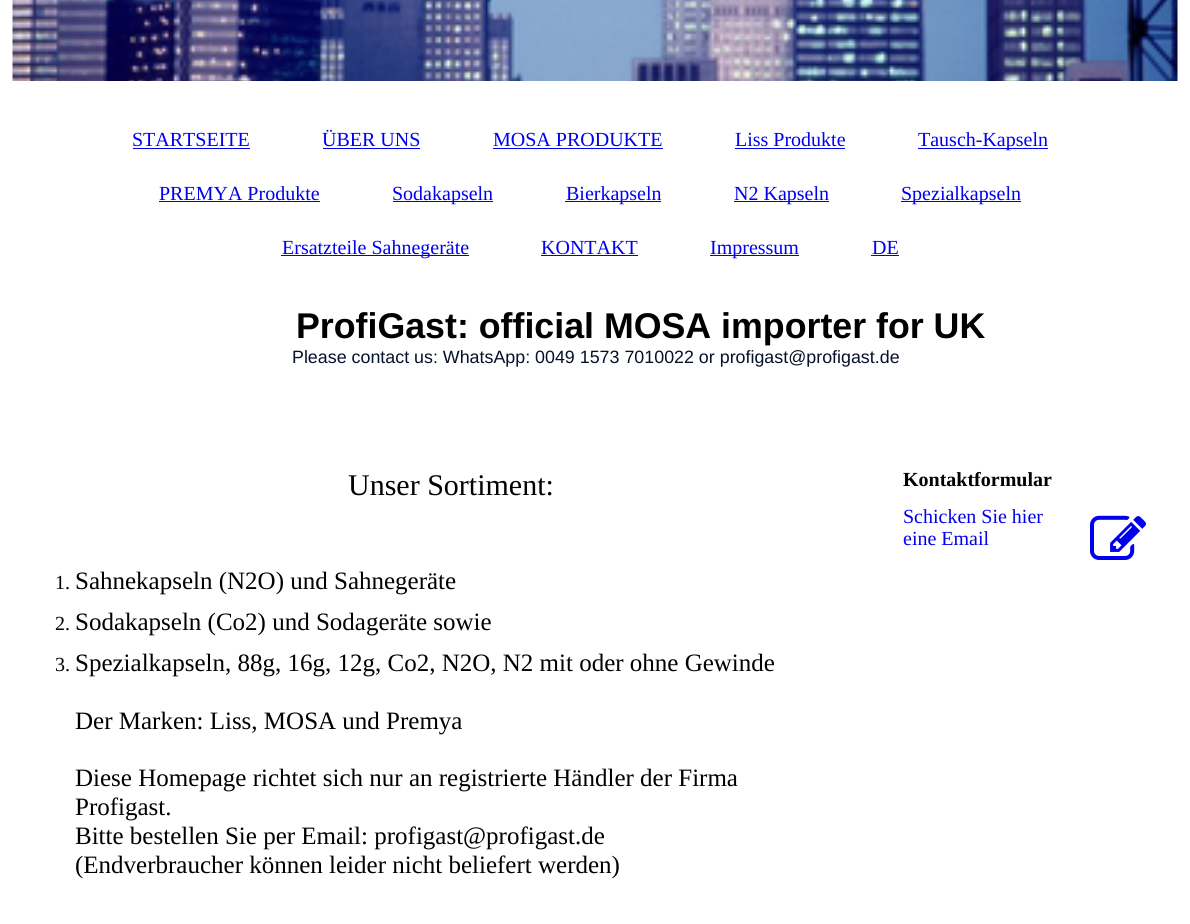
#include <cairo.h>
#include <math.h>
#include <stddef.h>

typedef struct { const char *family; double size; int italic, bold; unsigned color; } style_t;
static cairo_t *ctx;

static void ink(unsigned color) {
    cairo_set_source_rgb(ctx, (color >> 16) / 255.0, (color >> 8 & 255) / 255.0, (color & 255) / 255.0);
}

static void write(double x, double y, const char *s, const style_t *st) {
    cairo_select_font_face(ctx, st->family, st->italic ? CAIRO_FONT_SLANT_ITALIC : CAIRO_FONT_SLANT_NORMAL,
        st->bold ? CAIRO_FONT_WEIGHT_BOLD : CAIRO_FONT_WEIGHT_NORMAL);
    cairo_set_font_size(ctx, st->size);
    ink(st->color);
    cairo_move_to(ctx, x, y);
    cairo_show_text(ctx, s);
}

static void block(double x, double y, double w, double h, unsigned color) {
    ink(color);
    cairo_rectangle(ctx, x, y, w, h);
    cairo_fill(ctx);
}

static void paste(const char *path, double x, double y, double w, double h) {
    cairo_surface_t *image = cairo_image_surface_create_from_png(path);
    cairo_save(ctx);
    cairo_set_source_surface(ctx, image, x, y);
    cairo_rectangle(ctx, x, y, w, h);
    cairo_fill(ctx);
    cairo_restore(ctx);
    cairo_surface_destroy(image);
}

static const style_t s1 = {"Liberation Serif", 20, 0, 0, 0x0000ee};
static const style_t s2 = {"Liberation Sans", 35.75, 0, 1, 0x000000};
static const style_t s3 = {"Liberation Sans", 17.85, 0, 0, 0x051029};
static const style_t s4 = {"Liberation Serif", 30, 0, 0, 0x000000};
static const style_t s5 = {"Liberation Serif", 20, 0, 0, 0x000000};
static const style_t s6 = {"Liberation Serif", 25, 0, 0, 0x000000};
static const style_t s7 = {"Liberation Serif", 20, 0, 1, 0x000000};

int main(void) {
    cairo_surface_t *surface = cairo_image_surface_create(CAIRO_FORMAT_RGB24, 1190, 924);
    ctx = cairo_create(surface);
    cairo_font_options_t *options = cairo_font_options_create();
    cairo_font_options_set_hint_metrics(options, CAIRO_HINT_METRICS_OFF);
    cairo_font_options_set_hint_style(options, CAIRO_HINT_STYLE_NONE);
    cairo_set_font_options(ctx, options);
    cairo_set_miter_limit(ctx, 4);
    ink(0xffffff);
    cairo_paint(ctx);
    paste("pic1.png", 12, 0, 1166, 81);
    write(132, 146, "STARTSEITE", &s1);
    block(133, 148, 117, 1, 0x0000ee);
    write(322, 146, "ÜBER UNS", &s1);
    block(323, 148, 97, 1, 0x0000ee);
    write(493, 146, "MOSA PRODUKTE", &s1);
    block(493, 148, 170, 1, 0x0000ee);
    write(735, 146, "Liss Produkte", &s1);
    block(735, 148, 110, 1, 0x0000ee);
    block(918, 148, 130, 1, 0x0000ee);
    write(918, 146, "Tausch-Kapseln", &s1);
    write(159, 200, "PREMYA Produkte", &s1);
    block(159, 201, 161, 1, 0x0000ee);
    block(393, 201, 100, 1, 0x0000ee);
    write(392, 200, "Sodakapseln", &s1);
    block(565, 201, 96, 1, 0x0000ee);
    write(566, 200, "Bierkapseln", &s1);
    block(734, 201, 95, 1, 0x0000ee);
    write(734, 200, "N2 Kapseln", &s1);
    block(901, 201, 120, 1, 0x0000ee);
    write(901, 200, "Spezialkapseln", &s1);
    block(281, 255, 188, 1, 0x0000ee);
    write(282, 254, "Ersatzteile Sahnegeräte", &s1);
    write(541, 254, "KONTAKT", &s1);
    block(541, 255, 97, 1, 0x0000ee);
    block(710, 255, 89, 1, 0x0000ee);
    write(710, 254, "Impressum", &s1);
    write(872, 254, "DE", &s1);
    block(871, 255, 28, 1, 0x0000ee);
    write(296, 338, "ProfiGast: official MOSA importer for UK", &s2);
    write(292, 363, "Please contact us: WhatsApp: 0049 1573 7010022 or profigast@profigast.de", &s3);
    write(348, 495, "Unser Sortiment:", &s4);
    write(55, 589, "1.", &s5);
    write(75, 589, "Sahnekapseln (N2O) und Sahnegeräte", &s6);
    write(55, 630, "2.", &s5);
    write(75, 630, "Sodakapseln (Co2) und Sodageräte sowie", &s6);
    write(55, 671, "3.", &s5);
    write(75, 671, "Spezialkapseln, 88g, 16g, 12g, Co2, N2O, N2 mit oder ohne Gewinde", &s6);
    write(75, 729, "Der Marken: Liss, MOSA und Premya", &s6);
    write(75, 786, "Diese Homepage richtet sich nur an registrierte Händler der Firma", &s6);
    write(75, 815, "Profigast.", &s6);
    write(75, 844, "Bitte bestellen Sie per Email: profigast@profigast.de", &s6);
    write(75, 873, "(Endverbraucher können leider nicht beliefert werden)", &s6);
    write(903, 486, "Kontaktformular", &s7);
    write(903, 523, "Schicken Sie hier", &s1);
    write(903, 545, "eine Email", &s1);
    paste("pic2.png", 1090, 515, 56, 45);
    cairo_surface_write_to_png(surface, "screenshot.png");
    cairo_font_options_destroy(options);
    cairo_destroy(ctx);
    cairo_surface_destroy(surface);
    return 0;
}
